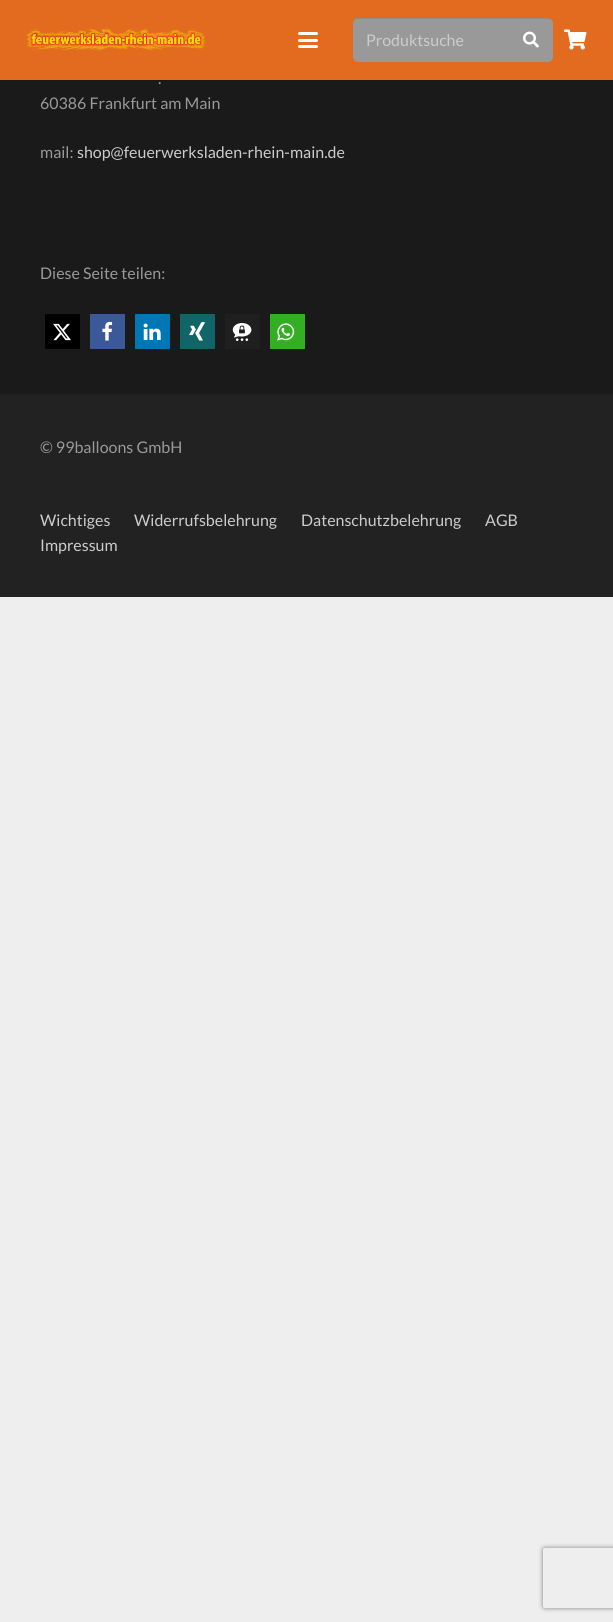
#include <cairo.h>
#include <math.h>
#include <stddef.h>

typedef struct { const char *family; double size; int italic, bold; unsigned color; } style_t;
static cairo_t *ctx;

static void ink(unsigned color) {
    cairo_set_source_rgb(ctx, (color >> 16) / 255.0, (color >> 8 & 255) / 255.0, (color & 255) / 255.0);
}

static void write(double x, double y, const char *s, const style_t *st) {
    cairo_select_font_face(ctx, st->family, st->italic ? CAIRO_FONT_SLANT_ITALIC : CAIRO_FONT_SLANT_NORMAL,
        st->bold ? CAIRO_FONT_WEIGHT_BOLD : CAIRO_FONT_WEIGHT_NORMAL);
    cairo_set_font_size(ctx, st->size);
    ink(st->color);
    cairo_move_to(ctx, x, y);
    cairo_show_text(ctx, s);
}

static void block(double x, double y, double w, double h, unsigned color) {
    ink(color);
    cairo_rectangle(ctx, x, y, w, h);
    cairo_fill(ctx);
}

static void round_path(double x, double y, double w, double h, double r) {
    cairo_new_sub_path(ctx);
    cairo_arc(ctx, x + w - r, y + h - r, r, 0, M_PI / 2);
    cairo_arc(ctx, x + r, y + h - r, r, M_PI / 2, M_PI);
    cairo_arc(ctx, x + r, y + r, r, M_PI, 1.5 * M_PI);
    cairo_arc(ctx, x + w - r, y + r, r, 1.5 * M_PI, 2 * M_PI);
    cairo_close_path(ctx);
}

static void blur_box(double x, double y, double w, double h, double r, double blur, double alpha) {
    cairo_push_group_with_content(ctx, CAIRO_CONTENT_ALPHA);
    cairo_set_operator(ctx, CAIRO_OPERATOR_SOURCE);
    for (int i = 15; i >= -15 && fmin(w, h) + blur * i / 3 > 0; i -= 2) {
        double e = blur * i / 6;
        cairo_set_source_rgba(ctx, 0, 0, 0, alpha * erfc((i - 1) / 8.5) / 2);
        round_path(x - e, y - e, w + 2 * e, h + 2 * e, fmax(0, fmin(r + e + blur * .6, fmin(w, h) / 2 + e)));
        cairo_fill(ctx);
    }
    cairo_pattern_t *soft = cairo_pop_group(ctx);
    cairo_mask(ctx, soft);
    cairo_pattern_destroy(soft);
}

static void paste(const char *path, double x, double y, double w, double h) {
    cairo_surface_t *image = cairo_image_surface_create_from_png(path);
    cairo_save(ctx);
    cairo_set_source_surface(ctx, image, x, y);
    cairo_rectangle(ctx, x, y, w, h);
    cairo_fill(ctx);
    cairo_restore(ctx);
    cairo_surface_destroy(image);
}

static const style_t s1 = {"Lato", 16, 0, 0, 0xcccccc};
static const style_t s2 = {"Lato", 16, 0, 0, 0x999999};

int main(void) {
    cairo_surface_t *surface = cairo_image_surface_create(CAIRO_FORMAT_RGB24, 613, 1622);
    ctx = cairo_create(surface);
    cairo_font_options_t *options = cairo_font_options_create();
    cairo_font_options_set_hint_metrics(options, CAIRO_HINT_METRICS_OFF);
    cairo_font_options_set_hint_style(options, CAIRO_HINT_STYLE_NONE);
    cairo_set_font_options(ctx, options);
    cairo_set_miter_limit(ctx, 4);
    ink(0xeeeeee);
    cairo_paint(ctx);
    block(0, 0, 613, 80, 0xe36b20);
    paste("pic1.png", 25, 27, 181, 24);
    ink(0xffffff);
    round_path(298, 39, 20, 3, 1.5);
    cairo_fill(ctx);
    round_path(298, 32, 20, 3, 1.5);
    cairo_fill(ctx);
    round_path(298, 45, 20, 3, 1.5);
    cairo_fill(ctx);
    ink(0x999999);
    round_path(353, 18, 200, 44, 5);
    cairo_fill(ctx);
    cairo_set_source_rgba(ctx, 0, 0, 0, 0.08);
    cairo_new_path(ctx);
    cairo_move_to(ctx, 358, 19);
    cairo_line_to(ctx, 548, 19);
    cairo_curve_to(ctx, 551, 19, 553, 21, 553, 24);
    cairo_line_to(ctx, 553, 23);
    cairo_curve_to(ctx, 553, 20, 551, 18, 548, 18);
    cairo_line_to(ctx, 358, 18);
    cairo_curve_to(ctx, 355, 18, 353, 20, 353, 23);
    cairo_line_to(ctx, 353, 24);
    cairo_curve_to(ctx, 353, 21, 355, 19, 358, 19);
    cairo_close_path(ctx);
    cairo_fill(ctx);
    write(366, 46, "Produktsuche", &s1);
    paste("pic2.png", 523, 31, 16, 17);
    paste("pic3.png", 564, 29, 23, 21);
    block(0, 80, 613, 314, 0x1a1a1a);
    write(158, 84, ".", &s2);
    write(40, 109, "60386 Frankfurt am Main", &s2);
    write(40, 158, "mail:", &s2);
    write(77, 158, "shop@feuerwerksladen-rhein-main.de", &s1);
    write(40, 279, "Diese Seite teilen:", &s2);
    ink(0x000000);
    round_path(45, 314, 35, 35, 0.5);
    cairo_fill(ctx);
    paste("pic4.png", 53, 323, 18, 18);
    ink(0x3b5998);
    round_path(90, 314, 35, 35, 0.5);
    cairo_fill(ctx);
    paste("pic5.png", 102, 321, 11, 20);
    ink(0x0077b5);
    round_path(135, 314, 35, 35, 0.5);
    cairo_fill(ctx);
    paste("pic6.png", 143, 323, 18, 18);
    ink(0x126567);
    round_path(180, 314, 35, 35, 0.5);
    cairo_fill(ctx);
    paste("pic7.png", 189, 322, 16, 19);
    ink(0x1f1f1f);
    round_path(225, 314, 35, 35, 0.5);
    cairo_fill(ctx);
    paste("pic8.png", 232, 323, 20, 18);
    ink(0x34af23);
    round_path(270, 314, 35, 35, 0.5);
    cairo_fill(ctx);
    paste("pic9.png", 277, 323, 18, 18);
    block(0, 394, 613, 203, 0x222222);
    write(40, 453, "© 99balloons GmbH", &s2);
    write(40, 526, "Wichtiges", &s1);
    write(134, 526, "Widerrufsbelehrung", &s1);
    write(301, 526, "Datenschutzbelehrung", &s1);
    write(485, 526, "AGB", &s1);
    write(40, 551, "Impressum", &s1);
    cairo_save(ctx);
    cairo_set_fill_rule(ctx, CAIRO_FILL_RULE_EVEN_ODD);
    cairo_new_path(ctx);
    cairo_move_to(ctx, 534, 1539);
    cairo_line_to(ctx, 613, 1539);
    cairo_line_to(ctx, 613, 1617);
    cairo_line_to(ctx, 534, 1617);
    cairo_close_path(ctx);
    cairo_move_to(ctx, 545, 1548);
    cairo_line_to(ctx, 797, 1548);
    cairo_curve_to(ctx, 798, 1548, 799, 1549, 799, 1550);
    cairo_line_to(ctx, 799, 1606);
    cairo_curve_to(ctx, 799, 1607, 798, 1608, 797, 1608);
    cairo_line_to(ctx, 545, 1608);
    cairo_curve_to(ctx, 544, 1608, 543, 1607, 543, 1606);
    cairo_line_to(ctx, 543, 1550);
    cairo_curve_to(ctx, 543, 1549, 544, 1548, 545, 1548);
    cairo_close_path(ctx);
    cairo_clip(ctx);
    ink(0x808080);
    blur_box(543, 1548, 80, 60, 2, 2.5, 1);
    cairo_restore(ctx);
    cairo_surface_write_to_png(surface, "screenshot.png");
    cairo_font_options_destroy(options);
    cairo_destroy(ctx);
    cairo_surface_destroy(surface);
    return 0;
}
